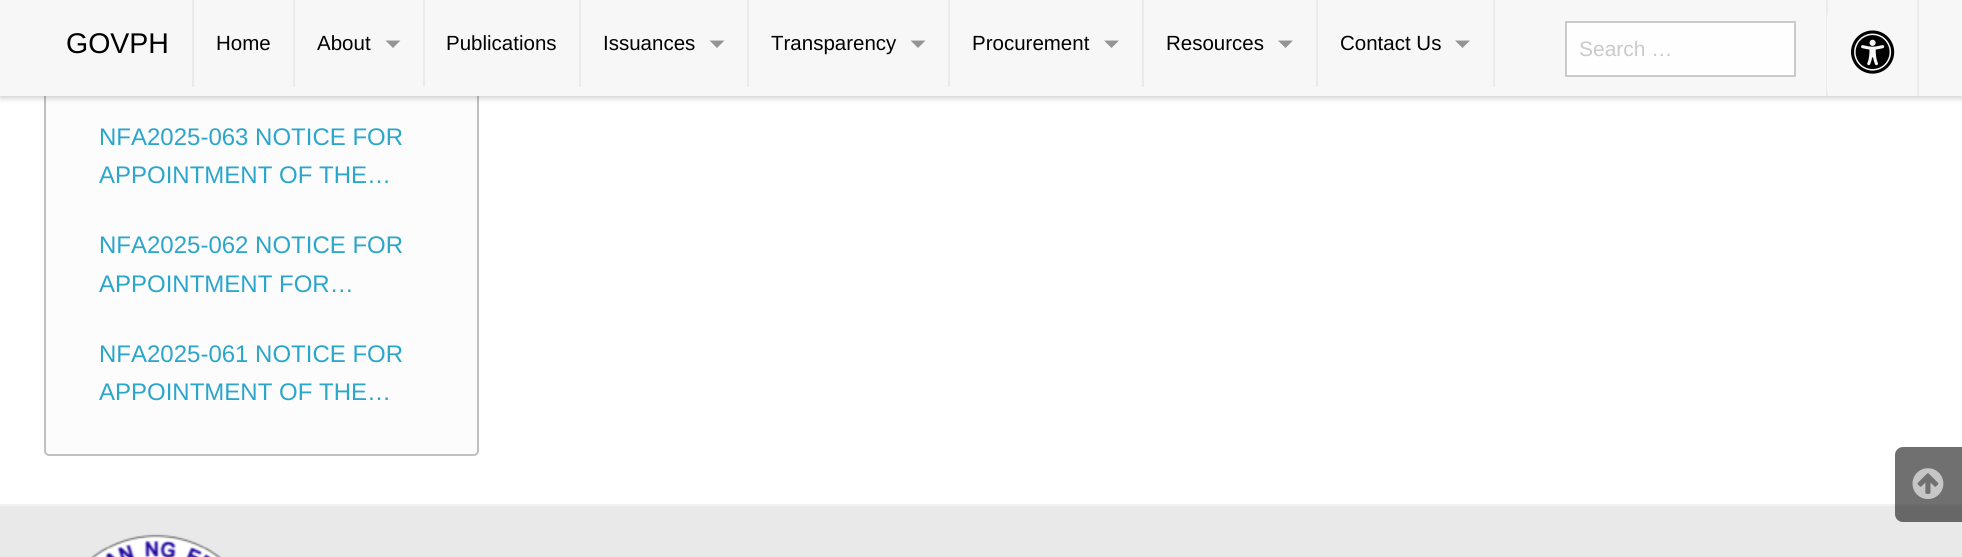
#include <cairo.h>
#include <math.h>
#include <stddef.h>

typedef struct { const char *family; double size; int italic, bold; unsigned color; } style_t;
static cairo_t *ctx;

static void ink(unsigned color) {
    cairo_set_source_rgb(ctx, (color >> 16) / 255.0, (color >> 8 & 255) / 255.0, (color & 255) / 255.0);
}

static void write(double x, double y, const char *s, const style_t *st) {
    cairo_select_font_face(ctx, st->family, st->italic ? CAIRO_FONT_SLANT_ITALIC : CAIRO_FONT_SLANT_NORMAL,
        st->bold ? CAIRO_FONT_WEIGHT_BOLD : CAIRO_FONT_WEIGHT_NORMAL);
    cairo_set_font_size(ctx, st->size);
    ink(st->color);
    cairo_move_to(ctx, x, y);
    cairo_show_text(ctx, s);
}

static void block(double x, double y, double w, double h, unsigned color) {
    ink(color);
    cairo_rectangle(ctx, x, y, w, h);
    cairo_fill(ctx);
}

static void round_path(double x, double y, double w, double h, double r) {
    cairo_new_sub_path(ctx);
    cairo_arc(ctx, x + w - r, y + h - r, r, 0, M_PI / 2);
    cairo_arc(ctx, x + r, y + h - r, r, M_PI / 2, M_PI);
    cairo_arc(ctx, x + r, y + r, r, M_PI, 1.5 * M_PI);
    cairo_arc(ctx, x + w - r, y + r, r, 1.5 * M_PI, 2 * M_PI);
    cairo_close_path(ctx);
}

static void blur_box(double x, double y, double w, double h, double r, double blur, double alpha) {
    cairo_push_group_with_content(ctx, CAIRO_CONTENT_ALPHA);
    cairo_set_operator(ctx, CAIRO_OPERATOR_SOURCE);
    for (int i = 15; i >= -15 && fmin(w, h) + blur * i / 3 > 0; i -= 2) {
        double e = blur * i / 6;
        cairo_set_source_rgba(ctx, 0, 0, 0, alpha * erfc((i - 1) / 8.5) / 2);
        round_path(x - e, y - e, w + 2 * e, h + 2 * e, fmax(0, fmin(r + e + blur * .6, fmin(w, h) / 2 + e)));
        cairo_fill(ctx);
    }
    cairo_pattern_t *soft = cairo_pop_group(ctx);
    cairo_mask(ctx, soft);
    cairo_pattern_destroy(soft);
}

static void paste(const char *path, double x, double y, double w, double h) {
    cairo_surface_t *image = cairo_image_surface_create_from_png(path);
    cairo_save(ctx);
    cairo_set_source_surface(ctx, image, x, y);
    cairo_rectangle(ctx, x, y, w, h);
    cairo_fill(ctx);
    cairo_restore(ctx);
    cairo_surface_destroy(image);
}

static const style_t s1 = {"Liberation Sans", 28.5, 0, 0, 0x000000};
static const style_t s2 = {"Liberation Sans", 20.5, 0, 0, 0x000000};
static const style_t s3 = {"Liberation Sans", 21, 0, 0, 0xcacaca};
static const style_t s4 = {"Liberation Sans", 24, 0, 0, 0x2ba6cb};

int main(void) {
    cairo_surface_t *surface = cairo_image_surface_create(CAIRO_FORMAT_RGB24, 1962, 557);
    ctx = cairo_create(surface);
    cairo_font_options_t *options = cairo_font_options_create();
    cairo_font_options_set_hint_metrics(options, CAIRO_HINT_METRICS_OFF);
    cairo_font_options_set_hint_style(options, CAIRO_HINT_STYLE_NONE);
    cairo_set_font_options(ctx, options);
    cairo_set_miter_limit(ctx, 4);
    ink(0xffffff);
    cairo_paint(ctx);
    ink(0xfcfcfc);
    round_path(45, -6, 433, 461, 4);
    cairo_fill_preserve(ctx);
    ink(0xc0c0c0);
    cairo_stroke(ctx);
    ink(0x000000);
    blur_box(0, 2, 1962, 96, 0, 3, 0.2);
    block(0, 0, 1962, 96, 0xf7f7f7);
    block(192, 0, 2, 87, 0xebebeb);
    write(66, 53, "GOVPH", &s1);
    block(293, 0, 2, 87, 0xebebeb);
    write(216, 50, "Home", &s2);
    block(423, 0, 2, 87, 0xebebeb);
    write(317, 50, "About", &s2);
    ink(0x949494);
    cairo_new_path(ctx);
    cairo_move_to(ctx, 385.5, 40.5);
    cairo_line_to(ctx, 400.5, 40.5);
    cairo_line_to(ctx, 393, 48);
    cairo_close_path(ctx);
    cairo_fill(ctx);
    block(579, 0, 2, 87, 0xebebeb);
    write(446, 50, "Publications", &s2);
    block(747, 0, 2, 87, 0xebebeb);
    write(603, 50, "Issuances", &s2);
    ink(0x949494);
    cairo_new_path(ctx);
    cairo_move_to(ctx, 709.5, 40.5);
    cairo_line_to(ctx, 724.5, 40.5);
    cairo_line_to(ctx, 717, 48);
    cairo_close_path(ctx);
    cairo_fill(ctx);
    block(948, 0, 2, 87, 0xebebeb);
    write(771, 50, "Transparency", &s2);
    ink(0x949494);
    cairo_new_path(ctx);
    cairo_move_to(ctx, 910.5, 40.5);
    cairo_line_to(ctx, 925.5, 40.5);
    cairo_line_to(ctx, 918, 48);
    cairo_close_path(ctx);
    cairo_fill(ctx);
    block(1142, 0, 2, 87, 0xebebeb);
    write(972, 50, "Procurement", &s2);
    ink(0x949494);
    cairo_new_path(ctx);
    cairo_move_to(ctx, 1104, 40.5);
    cairo_line_to(ctx, 1119, 40.5);
    cairo_line_to(ctx, 1111.5, 48);
    cairo_close_path(ctx);
    cairo_fill(ctx);
    block(1316, 0, 2, 87, 0xebebeb);
    write(1166, 50, "Resources", &s2);
    ink(0x949494);
    cairo_new_path(ctx);
    cairo_move_to(ctx, 1278, 40.5);
    cairo_line_to(ctx, 1293, 40.5);
    cairo_line_to(ctx, 1285.5, 48);
    cairo_close_path(ctx);
    cairo_fill(ctx);
    block(1493, 0, 2, 87, 0xebebeb);
    write(1340, 50, "Contact Us", &s2);
    ink(0x949494);
    cairo_new_path(ctx);
    cairo_move_to(ctx, 1455, 40.5);
    cairo_line_to(ctx, 1470, 40.5);
    cairo_line_to(ctx, 1462.5, 48);
    cairo_close_path(ctx);
    cairo_fill(ctx);
    block(1826, 0, 2, 96, 0xebebeb);
    ink(0xfefefe);
    cairo_rectangle(ctx, 1566, 22, 229, 54);
    cairo_fill_preserve(ctx);
    ink(0xcacaca);
    cairo_stroke(ctx);
    write(1579, 56, "Search …", &s3);
    block(1917, 0, 2, 96, 0xebebeb);
    ink(0xf7f7f7);
    round_path(1827, 12, 90, 83, 5);
    cairo_fill(ctx);
    paste("pic1.png", 1851, 30, 44, 44);
    write(99, 145, "NFA2025-063 NOTICE FOR", &s4);
    write(99, 183, "APPOINTMENT OF THE…", &s4);
    write(99, 253, "NFA2025-062 NOTICE FOR", &s4);
    write(99, 292, "APPOINTMENT FOR…", &s4);
    write(99, 362, "NFA2025-061 NOTICE FOR", &s4);
    write(99, 400, "APPOINTMENT OF THE…", &s4);
    block(0, 506, 1962, 51, 0xe9e9e9);
    block(0, 504, 1962, 2, 0xf2f2f2);
    paste("pic2.png", 91, 534, 131, 23);
    cairo_set_source_rgba(ctx, 0.067, 0.067, 0.067, 0.6);
    cairo_new_path(ctx);
    cairo_move_to(ctx, 1903, 447);
    cairo_line_to(ctx, 1962, 447);
    cairo_line_to(ctx, 1962, 522);
    cairo_line_to(ctx, 1903, 522);
    cairo_curve_to(ctx, 1898.5, 522, 1895, 518.5, 1895, 514);
    cairo_line_to(ctx, 1895, 455);
    cairo_curve_to(ctx, 1895, 450.5, 1898.5, 447, 1903, 447);
    cairo_close_path(ctx);
    cairo_fill(ctx);
    paste("pic3.png", 1912, 468, 32, 31);
    cairo_surface_write_to_png(surface, "screenshot.png");
    cairo_font_options_destroy(options);
    cairo_destroy(ctx);
    cairo_surface_destroy(surface);
    return 0;
}
